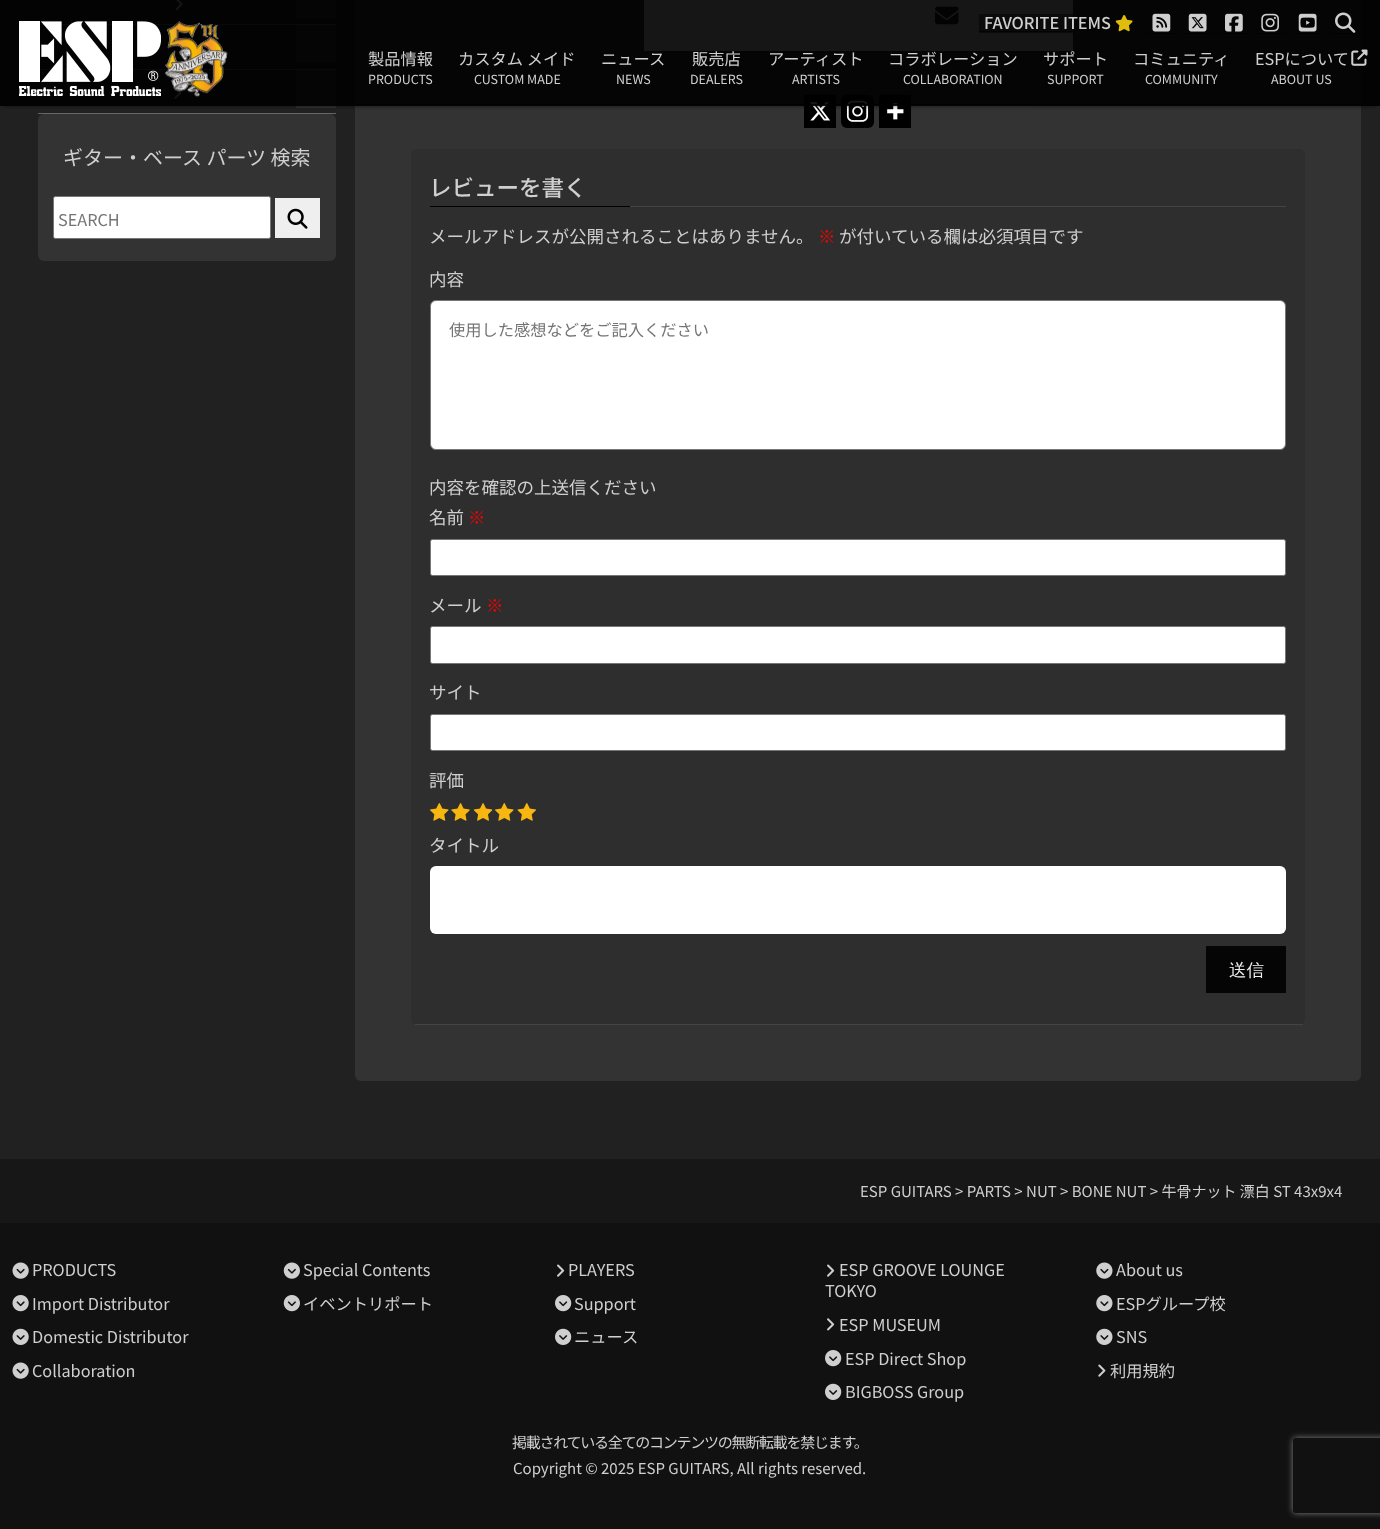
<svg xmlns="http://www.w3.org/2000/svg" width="1380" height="1529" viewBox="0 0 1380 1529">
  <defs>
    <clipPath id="clip1"><rect x="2" y="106" width="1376" height="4"/></clipPath>
    <filter id="blur1" x="-50%" y="-200%" width="200%" height="500%"><feGaussianBlur stdDeviation="2"/></filter>
    <clipPath id="clip2"><path d="M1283 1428H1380V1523H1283ZM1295.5 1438H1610.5C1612 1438 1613 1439 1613 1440.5V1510.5C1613 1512 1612 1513 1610.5 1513H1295.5C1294 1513 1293 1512 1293 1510.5V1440.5C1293 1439 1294 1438 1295.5 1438Z" clip-rule="evenodd"/></clipPath>
    <filter id="blur2" x="-50%" y="-200%" width="200%" height="500%"><feGaussianBlur stdDeviation="3"/></filter>
  </defs>
  <rect width="100%" height="100%" fill="#212121"/>
  <rect x="38" y="24" width="298" height="1" fill="#666666"/>
  <image x="175" y="0" width="8" height="10" href="img11.png"/>
  <rect x="296" y="0" width="40" height="19" fill="#333333"/>
  <rect x="38" y="69" width="298" height="1" fill="#666666"/>
  <rect x="296" y="25" width="40" height="38" fill="#333333"/>
  <image x="174" y="87" width="8" height="12" href="img12.png"/>
  <rect x="296" y="70" width="40" height="38" fill="#333333"/>
  <rect x="355" y="-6" width="1006" height="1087" rx="6" fill="#333333"/>
  <rect x="644" y="0" width="429" height="51" fill="#dbdbdb"/>
  <image x="935" y="6" width="24" height="19" href="img14.png"/>
  <rect x="804" y="95" width="32" height="33" fill="#000000"/>
  <image x="810" y="102" width="20" height="19" href="img15.png"/>
  <rect x="841" y="95" width="33" height="33" rx="6" fill="#000000"/>
  <image x="846" y="100" width="23" height="22" href="img16.png"/>
  <rect x="879" y="95" width="32" height="33" fill="#000000"/>
  <image x="887" y="103" width="17" height="17" href="img17.png"/>
  <g clip-path="url(#clip1)">
    <rect x="4" y="8" width="1372" height="98" fill="#000000" fill-opacity="0.6" filter="url(#blur1)"/>
  </g>
  <rect x="0" y="0" width="1380" height="106" fill="#000000" fill-opacity="0.9"/>
  <image x="19" y="21" width="142" height="75" href="img1.png"/>
  <image x="165" y="21" width="63" height="76" href="img2.png"/>
  <rect x="979" y="14" width="94" height="19" fill="#000000" fill-opacity="0.5"/>
  <rect x="979" y="31" width="94" height="1" fill="#000000" fill-opacity="0.7"/>
  <text x="984" y="29" font-family="Noto Sans JP" font-size="16.25" font-weight="500" fill="#cfcfcf">FAVORITE ITEMS</text>
  <image x="1115" y="15" width="18" height="17" href="img3.png"/>
  <rect x="1146" y="33" width="30" height="1" fill="#020202"/>
  <image x="1152" y="13" width="19" height="19" href="img4.png"/>
  <rect x="1183" y="33" width="30" height="1" fill="#020202"/>
  <image x="1188" y="13" width="19" height="19" href="img5.png"/>
  <rect x="1219" y="33" width="30" height="1" fill="#020202"/>
  <image x="1225" y="13" width="18" height="19" href="img6.png"/>
  <rect x="1255" y="33" width="31" height="1" fill="#020202"/>
  <image x="1261" y="13" width="18" height="19" href="img7.png"/>
  <rect x="1293" y="33" width="30" height="1" fill="#020202"/>
  <image x="1298" y="13" width="19" height="19" href="img8.png"/>
  <rect x="1329" y="33" width="32" height="1" fill="#020202"/>
  <image x="1335" y="12" width="21" height="21" href="img9.png"/>
  <rect x="356" y="104" width="90" height="1" fill="#020202"/>
  <text x="368" y="65" font-family="Noto Sans JP" font-size="16.25" fill="#cfcfcf">製品情報</text>
  <text x="368" y="84" font-family="Noto Sans JP" font-size="12.5" fill="#cfcfcf">PRODUCTS</text>
  <text x="458" y="65" font-family="Noto Sans JP" font-size="16.25" fill="#cfcfcf">カスタム メイド</text>
  <text x="474" y="84" font-family="Noto Sans JP" font-size="12.5" fill="#cfcfcf">CUSTOM MADE</text>
  <rect x="446" y="104" width="309" height="1" fill="#020202"/>
  <text x="601" y="65" font-family="Noto Sans JP" font-size="16.25" fill="#cfcfcf">ニュース</text>
  <text x="616" y="84" font-family="Noto Sans JP" font-size="12.5" fill="#cfcfcf">NEWS</text>
  <text x="692" y="65" font-family="Noto Sans JP" font-size="16.25" fill="#cfcfcf">販売店</text>
  <text x="690" y="84" font-family="Noto Sans JP" font-size="12.5" fill="#cfcfcf">DEALERS</text>
  <rect x="755" y="104" width="121" height="1" fill="#000000" fill-opacity="0.7"/>
  <text x="768" y="65" font-family="Noto Sans JP" font-size="16.25" fill="#cfcfcf">アーティスト</text>
  <text x="792" y="84" font-family="Noto Sans JP" font-size="12.5" fill="#cfcfcf">ARTISTS</text>
  <rect x="876" y="104" width="155" height="1" fill="#000000" fill-opacity="0.7"/>
  <text x="888" y="65" font-family="Noto Sans JP" font-size="16.25" fill="#cfcfcf">コラボレーション</text>
  <text x="903" y="84" font-family="Noto Sans JP" font-size="12.5" fill="#cfcfcf">COLLABORATION</text>
  <rect x="1031" y="104" width="330" height="1" fill="#020202"/>
  <text x="1043" y="65" font-family="Noto Sans JP" font-size="16.25" fill="#cfcfcf">サポート</text>
  <text x="1047" y="84" font-family="Noto Sans JP" font-size="12.5" fill="#cfcfcf">SUPPORT</text>
  <text x="1133" y="65" font-family="Noto Sans JP" font-size="16.25" fill="#cfcfcf">コミュニティ</text>
  <text x="1145" y="84" font-family="Noto Sans JP" font-size="12.5" fill="#cfcfcf">COMMUNITY</text>
  <text x="1255" y="65" font-family="Noto Sans JP" font-size="16.25" fill="#cfcfcf">ESPについて</text>
  <image x="1351" y="49" width="17" height="17" href="img10.png"/>
  <text x="1271" y="84" font-family="Noto Sans JP" font-size="12.5" fill="#cfcfcf">ABOUT US</text>
  <rect x="38" y="113" width="298" height="1" fill="#666666"/>
  <rect x="38" y="114" width="298" height="147" rx="6" fill="#333333"/>
  <text x="63" y="165" font-family="Noto Sans JP" font-size="20" fill="#cfcfcf">ギター・ベース パーツ 検索</text>
  <rect x="53.5" y="196.5" width="217" height="42" rx="2" fill="#ffffff" stroke="#767676"/>
  <text x="58" y="226" font-family="Noto Sans JP" font-size="16.25" fill="#757575">SEARCH</text>
  <rect x="275" y="198" width="45" height="40" fill="#efefef"/>
  <image x="287" y="208" width="21" height="21" href="img13.png"/>
  <rect x="411" y="149" width="894" height="876" rx="6" fill="#2e2e2e"/>
  <rect x="415" y="1024" width="888" height="1" fill="#444444"/>
  <rect x="630" y="206" width="656" height="1" fill="#444444"/>
  <text x="429" y="196" font-family="Noto Sans JP" font-size="22.5" font-weight="500" fill="#cfcfcf">レビューを書く</text>
  <rect x="430" y="206" width="200" height="1" fill="#000000"/>
  <text x="429" y="243" font-family="Noto Sans JP" font-size="17.5" fill="#cfcfcf">メールアドレスが公開されることはありません。</text>
  <text x="818" y="243" font-family="Noto Sans JP" font-size="17.5" fill="#ff0000">※</text>
  <text x="839" y="243" font-family="Noto Sans JP" font-size="17.5" fill="#cfcfcf">が付いている欄は必須項目です</text>
  <text x="429" y="286" font-family="Noto Sans JP" font-size="17.5" fill="#cfcfcf">内容</text>
  <rect x="430.5" y="300.5" width="855" height="149" rx="5.5" fill="#ffffff" stroke="#767676"/>
  <text x="449" y="336" font-family="Noto Sans JP" font-size="16.25" fill="#757575">使用した感想などをご記入ください</text>
  <text x="429" y="494" font-family="Noto Sans JP" font-size="17.5" fill="#cfcfcf">内容を確認の上送信ください</text>
  <text x="429" y="524" font-family="Noto Sans JP" font-size="17.5" fill="#cfcfcf">名前</text>
  <text x="468" y="524" font-family="Noto Sans JP" font-size="17.5" fill="#ff0000">※</text>
  <rect x="430.5" y="539.5" width="855" height="36" rx="2" fill="#ffffff" stroke="#767676"/>
  <text x="429" y="612" font-family="Noto Sans JP" font-size="17.5" fill="#cfcfcf">メール</text>
  <text x="486" y="612" font-family="Noto Sans JP" font-size="17.5" fill="#ff0000">※</text>
  <rect x="430.5" y="626.5" width="855" height="37" rx="2" fill="#ffffff" stroke="#767676"/>
  <text x="429" y="699" font-family="Noto Sans JP" font-size="17.5" fill="#cfcfcf">サイト</text>
  <rect x="430.5" y="714.5" width="855" height="36" rx="2" fill="#ffffff" stroke="#767676"/>
  <text x="429" y="787" font-family="Noto Sans JP" font-size="17.5" fill="#cfcfcf">評価</text>
  <image x="430" y="803" width="19" height="18" href="img18.png"/>
  <image x="451" y="803" width="19" height="18" href="img19.png"/>
  <image x="473" y="803" width="20" height="18" href="img20.png"/>
  <image x="495" y="803" width="19" height="18" href="img18.png"/>
  <image x="517" y="803" width="19" height="18" href="img21.png"/>
  <text x="429" y="852" font-family="Noto Sans JP" font-size="17.5" fill="#cfcfcf">タイトル</text>
  <rect x="430" y="866" width="856" height="68" rx="6" fill="#ffffff"/>
  <rect x="1206" y="946" width="80" height="47" fill="#050505"/>
  <text x="1229" y="976" font-family="WenQuanYi Zen Hei" font-size="17.5" font-weight="500" fill="#efefef">送信</text>
  <rect x="0" y="1159" width="1380" height="64" fill="#171717"/>
  <text x="860" y="1197" font-family="Noto Sans JP" font-size="15" fill="#cfcfcf">ESP GUITARS &gt; PARTS &gt; NUT &gt; BONE NUT &gt; 牛骨ナット 漂白 ST 43x9x4</text>
  <rect x="0" y="1223" width="1380" height="306" fill="#111111"/>
  <image x="12" y="1262" width="17" height="17" href="img22.png"/>
  <text x="32" y="1276" font-family="Noto Sans JP" font-size="16.25" fill="#cfcfcf">PRODUCTS</text>
  <image x="12" y="1295" width="17" height="17" href="img23.png"/>
  <text x="32" y="1310" font-family="Noto Sans JP" font-size="16.25" fill="#cfcfcf">Import Distributor</text>
  <image x="12" y="1328" width="17" height="17" href="img24.png"/>
  <text x="32" y="1343" font-family="Noto Sans JP" font-size="16.25" fill="#cfcfcf">Domestic Distributor</text>
  <image x="12" y="1362" width="17" height="17" href="img22.png"/>
  <text x="32" y="1377" font-family="Noto Sans JP" font-size="16.25" fill="#cfcfcf">Collaboration</text>
  <image x="283" y="1262" width="17" height="17" href="img25.png"/>
  <text x="303" y="1276" font-family="Noto Sans JP" font-size="16.25" fill="#cfcfcf">Special Contents</text>
  <image x="283" y="1295" width="17" height="17" href="img26.png"/>
  <text x="303" y="1310" font-family="Noto Sans JP" font-size="16.25" fill="#cfcfcf">イベントリポート</text>
  <image x="557" y="1264" width="8" height="13" href="img27.png"/>
  <text x="568" y="1276" font-family="Noto Sans JP" font-size="16.25" fill="#cfcfcf">PLAYERS</text>
  <image x="555" y="1295" width="17" height="17" href="img28.png"/>
  <text x="574" y="1310" font-family="Noto Sans JP" font-size="16.25" fill="#cfcfcf">Support</text>
  <image x="555" y="1328" width="17" height="17" href="img29.png"/>
  <text x="574" y="1343" font-family="Noto Sans JP" font-size="16.25" fill="#cfcfcf">ニュース</text>
  <image x="827" y="1264" width="8" height="13" href="img27.png"/>
  <text x="839" y="1276" font-family="Noto Sans JP" font-size="16.25" fill="#cfcfcf">ESP GROOVE LOUNGE</text>
  <text x="825" y="1297" font-family="Noto Sans JP" font-size="16.25" fill="#cfcfcf">TOKYO</text>
  <image x="827" y="1318" width="8" height="13" href="img30.png"/>
  <text x="839" y="1331" font-family="Noto Sans JP" font-size="16.25" fill="#cfcfcf">ESP MUSEUM</text>
  <image x="825" y="1350" width="17" height="17" href="img28.png"/>
  <text x="845" y="1365" font-family="Noto Sans JP" font-size="16.25" fill="#cfcfcf">ESP Direct Shop</text>
  <image x="825" y="1383" width="17" height="17" href="img29.png"/>
  <text x="845" y="1398" font-family="Noto Sans JP" font-size="16.25" fill="#cfcfcf">BIGBOSS Group</text>
  <image x="1096" y="1262" width="17" height="17" href="img31.png"/>
  <text x="1116" y="1276" font-family="Noto Sans JP" font-size="16.25" fill="#cfcfcf">About us</text>
  <image x="1096" y="1295" width="17" height="17" href="img32.png"/>
  <text x="1116" y="1310" font-family="Noto Sans JP" font-size="16.25" fill="#cfcfcf">ESPグループ校</text>
  <image x="1096" y="1328" width="17" height="17" href="img33.png"/>
  <text x="1116" y="1343" font-family="Noto Sans JP" font-size="16.25" fill="#cfcfcf">SNS</text>
  <image x="1098" y="1364" width="8" height="13" href="img34.png"/>
  <text x="1110" y="1377" font-family="Noto Sans JP" font-size="16.25" fill="#cfcfcf">利用規約</text>
  <text x="512" y="1448" font-family="Noto Sans JP" font-size="15" letter-spacing="-1.25" fill="#cfcfcf">掲載されている全てのコンテンツの無断転載を禁じます。</text>
  <text x="513" y="1474" font-family="Noto Sans JP" font-size="15" fill="#cfcfcf">Copyright © 2025 ESP GUITARS, All rights reserved.</text>
  <g clip-path="url(#clip2)">
    <rect x="1293" y="1438" width="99" height="75" rx="2.5" fill="#808080" filter="url(#blur2)"/>
  </g>
</svg>
